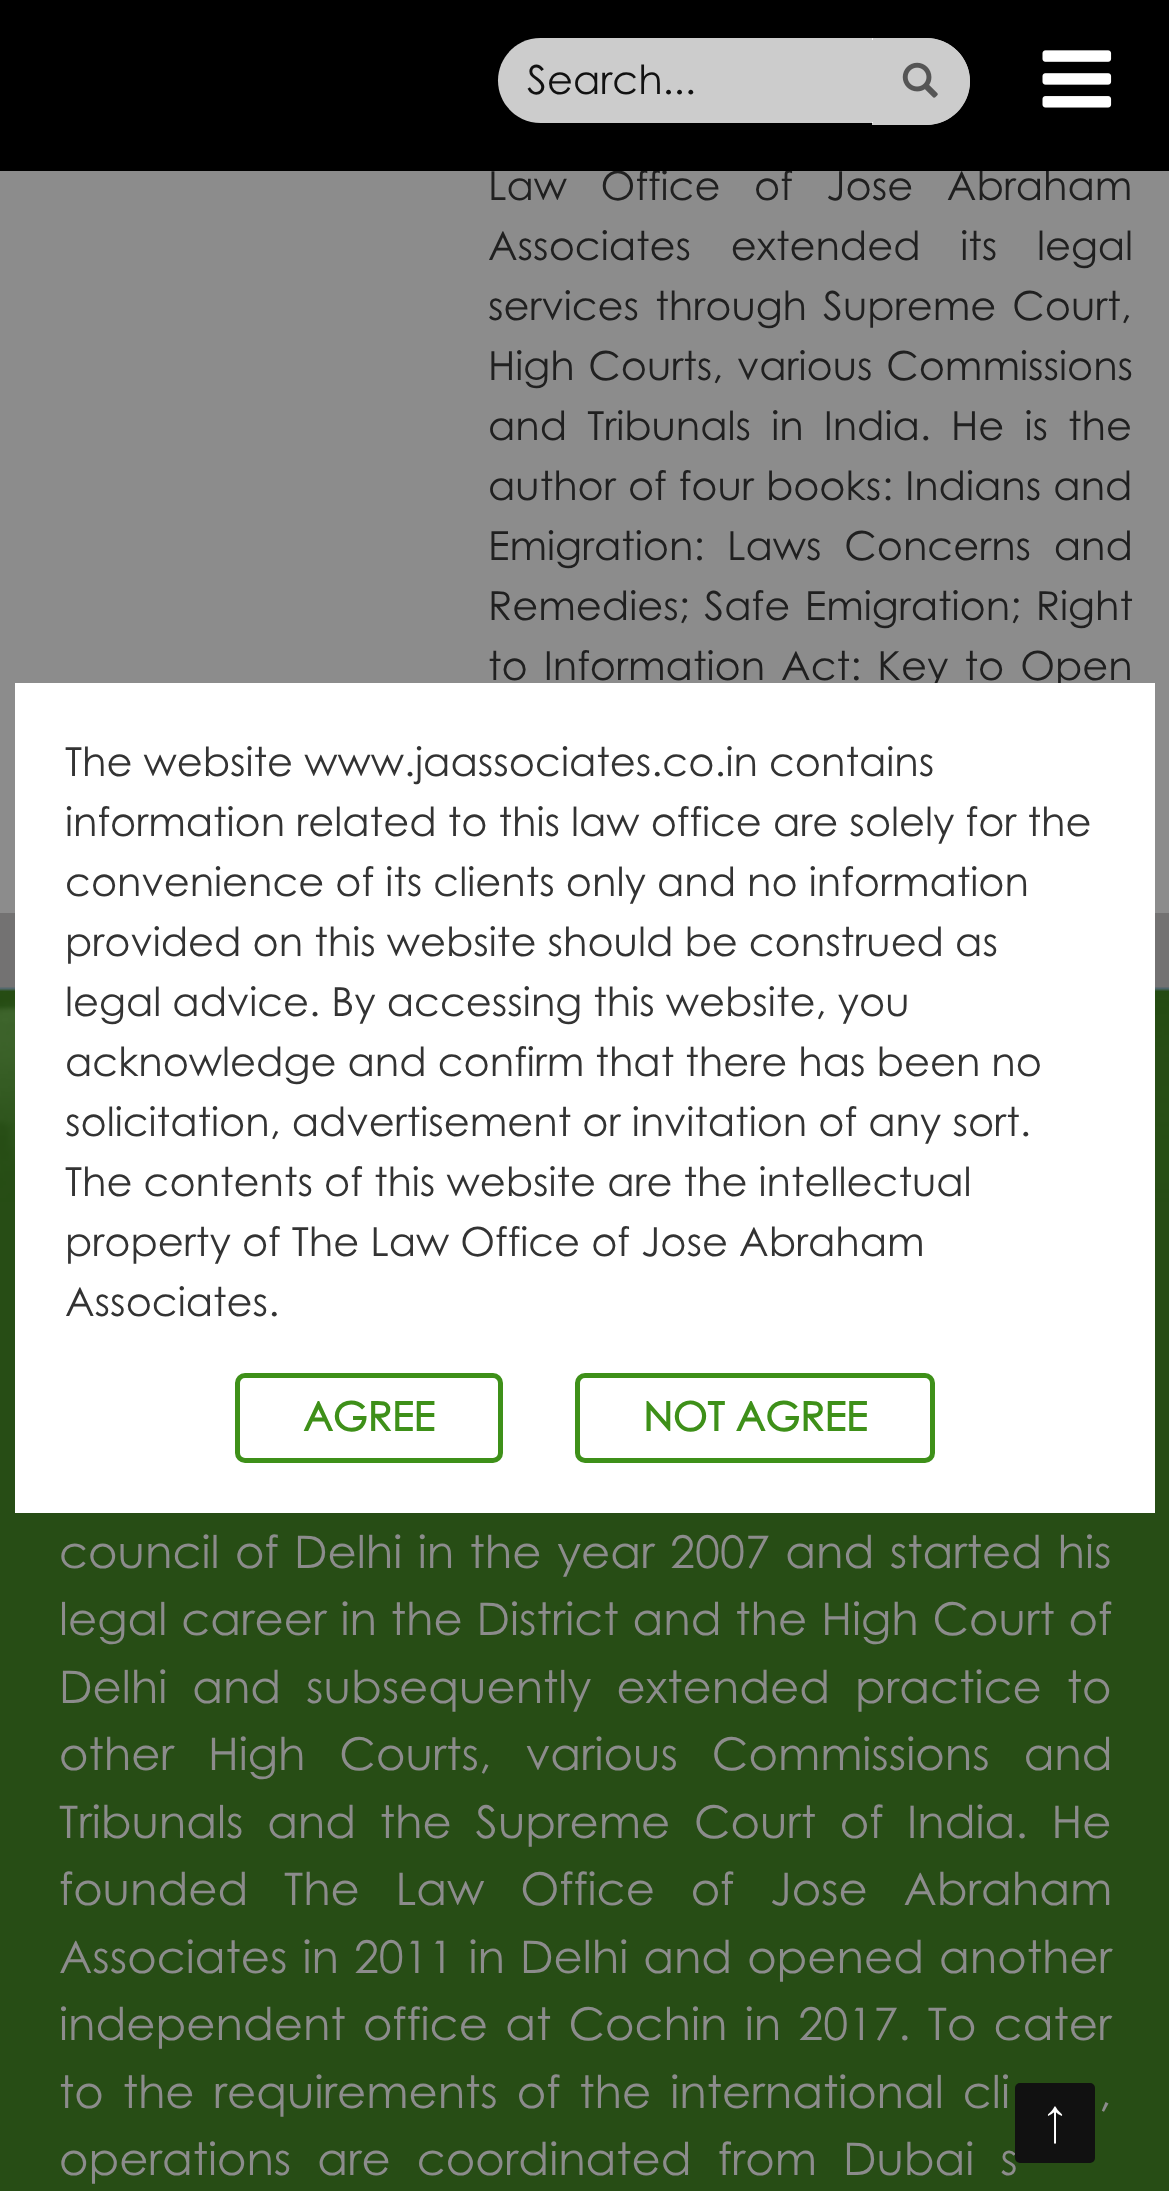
<svg xmlns="http://www.w3.org/2000/svg" width="1169" height="2191" viewBox="0 0 1169 2191">
  <rect width="100%" height="100%" fill="#737272"/>
  <rect x="0" y="171" width="1169" height="742" fill="#8c8c8c"/>
  <text x="488" y="200" word-spacing="22.5" font-family="Century Gothic" font-size="40" fill="#202020">Law Office of Jose Abraham</text>
  <rect x="0" y="0" width="1169" height="171" fill="#000000"/>
  <path d="M873 38H926.5C950.5 38 970 57.5 970 81.5C970 105.5 950.5 125 926.5 125H873Z" fill="#cccccc"/>
  <path d="M872 38H926C950 38 970 57 970 81C970 105 950 125 926 125H872ZM872 40H926C949 40 968 58 968 81C968 104 949 122 926 122H872Z" fill="#cccccc" fill-rule="evenodd"/>
  <path d="M540.5 38H873V123H540.5C517 123 498 104 498 80.5C498 57 517 38 540.5 38Z" fill="#ffffff" fill-opacity="0.8"/>
  <text x="527" y="94" font-family="Century Gothic" font-size="40" fill="#111111">Search...</text>
  <image x="902" y="62" width="36" height="36" href="img1.png"/>
  <image x="1042" y="50" width="70" height="58" href="img2.png"/>
  <text x="488" y="260" word-spacing="28.5" font-family="Century Gothic" font-size="40" fill="#202020">Associates extended its legal</text>
  <text x="488" y="320" word-spacing="5" font-family="Century Gothic" font-size="40" fill="#202020">services through Supreme Court,</text>
  <text x="488" y="380" word-spacing="2.5" font-family="Century Gothic" font-size="40" fill="#202020">High Courts, various Commissions</text>
  <text x="488" y="440" word-spacing="9" font-family="Century Gothic" font-size="40" fill="#202020">and Tribunals in India. He is the</text>
  <text x="488" y="500" word-spacing="1" font-family="Century Gothic" font-size="40" fill="#202020">author of four books</text>
  <text x="882" y="500" word-spacing="1" font-family="Century Gothic" font-size="40" fill="#202020">: Indians and</text>
  <text x="488" y="560" word-spacing="11.5" font-family="Century Gothic" font-size="40" fill="#202020">Emigration: Laws Concerns and</text>
  <text x="488" y="620" word-spacing="3.5" font-family="Century Gothic" font-size="40" fill="#202020">Remedies; Safe Emigration; Right</text>
  <text x="488" y="680" word-spacing="5" font-family="Century Gothic" font-size="40" fill="#202020">to Information Act: Key to Open</text>
  <image x="0" y="987" width="1169" height="1204" href="img3.png"/>
  <rect x="15" y="683" width="1140" height="830" fill="#ffffff"/>
  <text x="65" y="776" font-family="Century Gothic" font-size="40" fill="#333333">The website www.jaassociates.co.in contains</text>
  <text x="65" y="836" font-family="Century Gothic" font-size="40" fill="#333333">information related to this law office are solely for the</text>
  <text x="65" y="896" font-family="Century Gothic" font-size="40" fill="#333333">convenience of its clients only and no information</text>
  <text x="65" y="956" font-family="Century Gothic" font-size="40" fill="#333333">provided on this website should be construed as</text>
  <text x="65" y="1016" font-family="Century Gothic" font-size="40" fill="#333333">legal advice. By accessing this website, you</text>
  <text x="65" y="1076" font-family="Century Gothic" font-size="40" fill="#333333">acknowledge and confirm that there has been no</text>
  <text x="65" y="1136" font-family="Century Gothic" font-size="40" fill="#333333">solicitation, advertisement or invitation of any sort.</text>
  <text x="65" y="1196" font-family="Century Gothic" font-size="40" fill="#333333">The contents of this website are the intellectual</text>
  <text x="65" y="1256" font-family="Century Gothic" font-size="40" fill="#333333">property of The Law Office of Jose Abraham</text>
  <text x="65" y="1316" font-family="Century Gothic" font-size="40" fill="#333333">Associates.</text>
  <rect x="237.5" y="1375.5" width="263" height="85" rx="7.5" fill="none" stroke="#3e9019" stroke-width="5"/>
  <text x="303" y="1431" font-family="Century Gothic" font-size="40" font-weight="bold" fill="#3e9019">AGREE</text>
  <rect x="577.5" y="1375.5" width="355" height="85" rx="7.5" fill="none" stroke="#3e9019" stroke-width="5"/>
  <text x="643" y="1431" font-family="Century Gothic" font-size="40" font-weight="bold" fill="#3e9019">NOT AGREE</text>
  <text x="59" y="1568" word-spacing="3" font-family="Century Gothic" font-size="45" fill="#8c8c8c">council of Delhi in the year 2007 and started his</text>
  <text x="59" y="1635" word-spacing="1.4" font-family="Century Gothic" font-size="45" fill="#8c8c8c">legal career in the District and the High Court of</text>
  <text x="59" y="1703" word-spacing="12.5" font-family="Century Gothic" font-size="45" fill="#8c8c8c">Delhi and subsequently extended practice to</text>
  <text x="59" y="1770" word-spacing="21.5" font-family="Century Gothic" font-size="45" fill="#8c8c8c">other High Courts, various Commissions and</text>
  <text x="59" y="1838" word-spacing="11.25" font-family="Century Gothic" font-size="45" fill="#8c8c8c">Tribunals and the Supreme Court of India. He</text>
  <text x="59" y="1905" word-spacing="23.25" font-family="Century Gothic" font-size="45" fill="#8c8c8c">founded The Law Office of Jose Abraham</text>
  <text x="59" y="1973" word-spacing="2.5" font-family="Century Gothic" font-size="45" fill="#8c8c8c">Associates in 2011 in Delhi and opened another</text>
  <text x="59" y="2040" word-spacing="4.75" font-family="Century Gothic" font-size="45" fill="#8c8c8c">independent office at Cochin in 2017. To cater</text>
  <text x="59" y="2108" word-spacing="6.5" font-family="Century Gothic" font-size="45" fill="#8c8c8c">to the requirements of the international cli</text>
  <text x="1099" y="2108" word-spacing="6.5" font-family="Century Gothic" font-size="45" fill="#8c8c8c">,</text>
  <text x="59" y="2175" word-spacing="13.5" font-family="Century Gothic" font-size="45" fill="#8c8c8c">operations are coordinated from Dubai s</text>
  <rect x="1015" y="2083" width="80" height="80" rx="5" fill="#111111"/>
  <text x="1045" y="2135" font-family="Century Gothic" font-size="40" fill="#ffffff">↑</text>
</svg>
